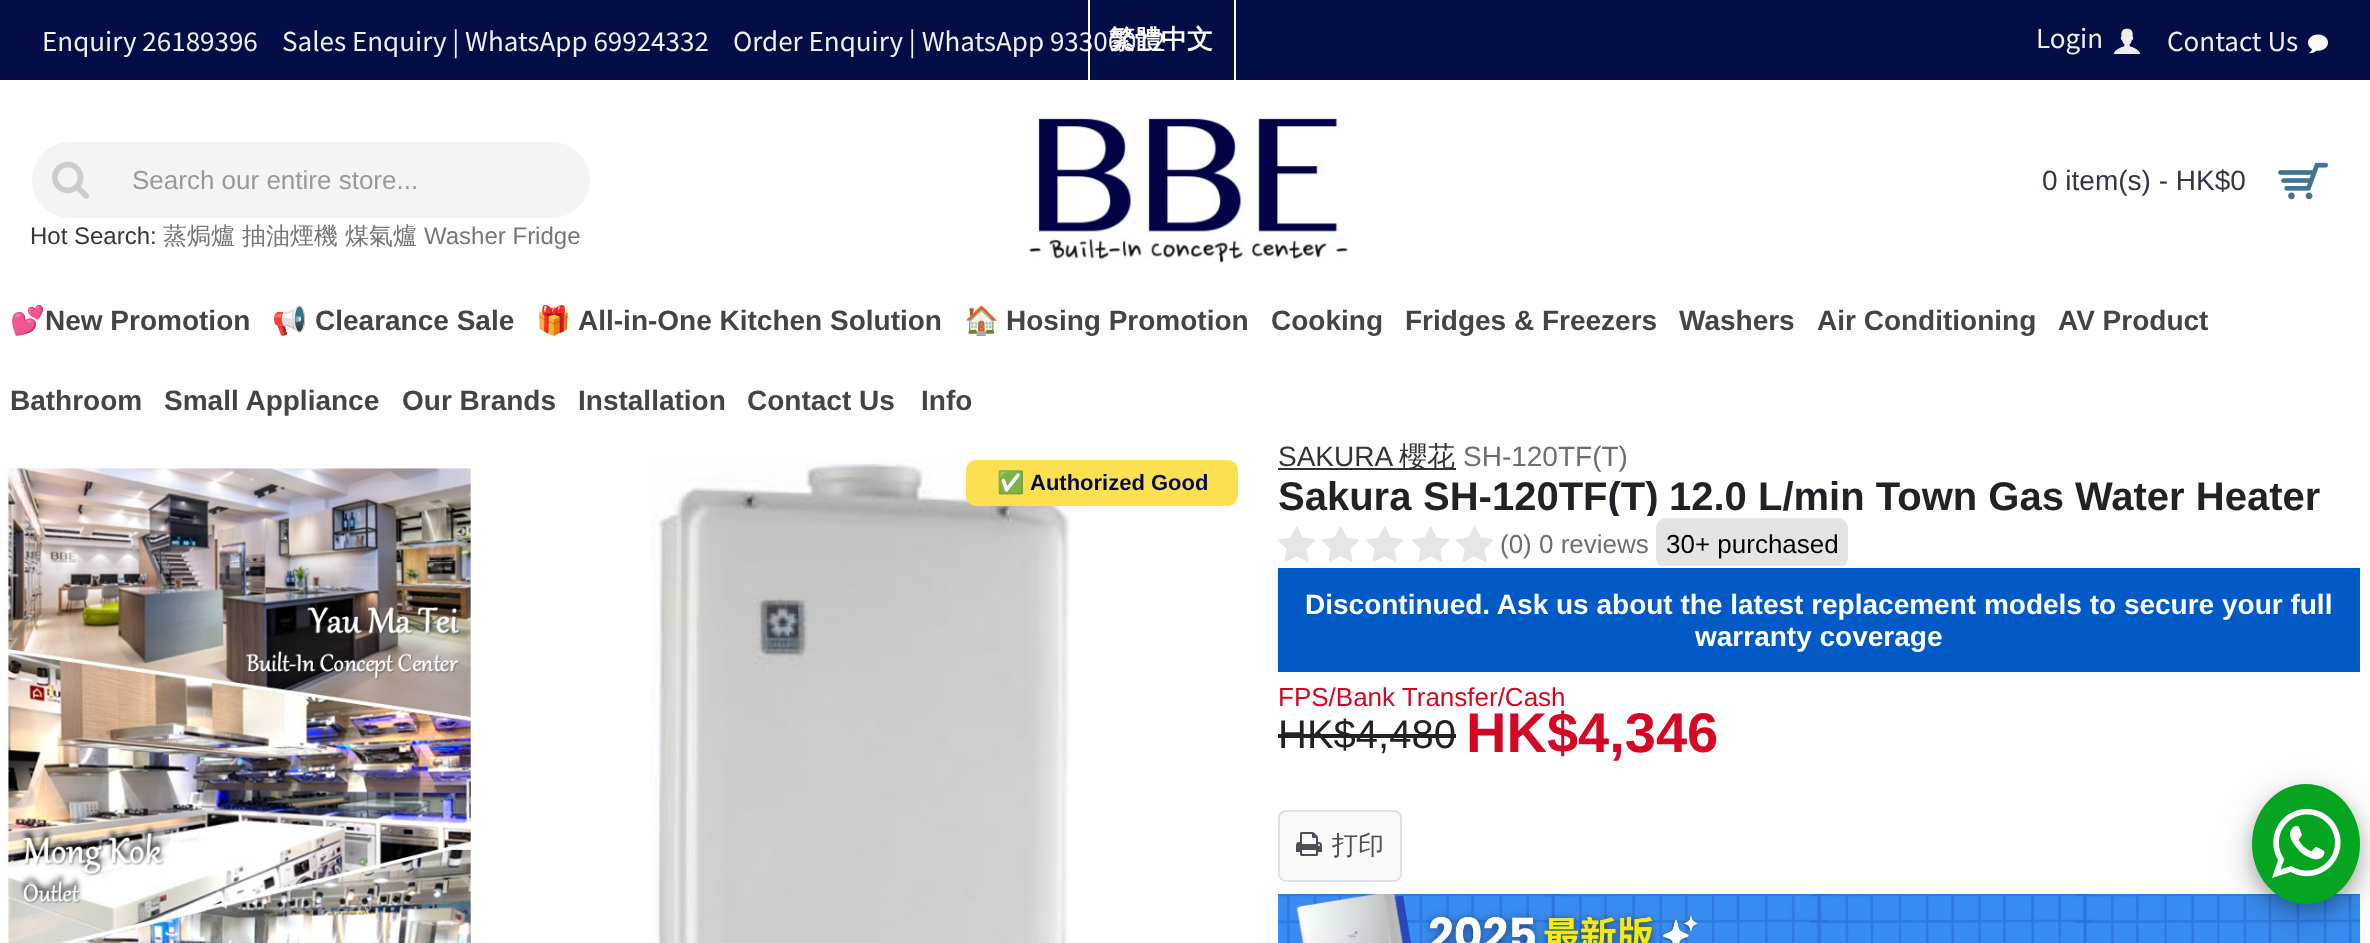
<svg xmlns="http://www.w3.org/2000/svg" width="2370" height="943" viewBox="0 0 2370 943">
  <defs>
    <clipPath id="clip1"><rect x="1278" y="476" width="1082" height="40"/></clipPath>
    <clipPath id="clip2"><rect x="1278" y="516" width="1082" height="50"/></clipPath>
    <filter id="blur1" x="-50%" y="-200%" width="200%" height="500%"><feGaussianBlur stdDeviation="20"/></filter>
    <filter id="blur2" x="-50%" y="-200%" width="200%" height="500%"><feGaussianBlur stdDeviation="8"/></filter>
  </defs>
  <rect width="100%" height="100%" fill="#ffffff"/>
  <rect x="0" y="0" width="2370" height="80" fill="#040e46"/>
  <rect x="1234" y="0" width="2" height="80" fill="#ffffff"/>
  <text x="733" y="51" font-family="Noto Sans TC" font-size="26" fill="#eeeeee">Order Enquiry | WhatsApp 93306012</text>
  <rect x="1088" y="0" width="2" height="80" fill="#ffffff"/>
  <text x="1109" y="48" font-family="WenQuanYi Zen Hei" font-size="26" font-weight="bold" fill="#ffffff">繁體中文</text>
  <text x="2036" y="48" font-family="Noto Sans TC" font-size="26" fill="#eeeeee">Login</text>
  <image x="2113" y="28" width="28" height="26" href="img1.png"/>
  <text x="2167" y="51" font-family="Noto Sans TC" font-size="26" fill="#eeeeee">Contact Us</text>
  <image x="2308" y="34" width="20" height="20" href="img2.png"/>
  <text x="42" y="51" font-family="Noto Sans TC" font-size="26" fill="#eeeeee">Enquiry 26189396</text>
  <text x="282" y="51" font-family="Noto Sans TC" font-size="26" fill="#eeeeee">Sales Enquiry | WhatsApp 69924332</text>
  <rect x="31" y="141" width="560" height="78" rx="39" fill="#f4f4f4" stroke="#ffffff" stroke-width="2"/>
  <image x="52" y="161" width="37" height="38" href="img3.png"/>
  <text x="132" y="189" font-family="Liberation Sans" font-size="26" fill="#999999">Search our entire store...</text>
  <text x="30" y="244" font-family="Liberation Sans" font-size="24" fill="#333745">Hot Search:</text>
  <text x="163" y="244" font-family="WenQuanYi Zen Hei" font-size="24" font-weight="500" fill="#777777">蒸焗爐</text>
  <text x="242" y="244" font-family="WenQuanYi Zen Hei" font-size="24" font-weight="500" fill="#777777">抽油煙機</text>
  <text x="345" y="244" font-family="WenQuanYi Zen Hei" font-size="24" font-weight="500" fill="#777777">煤氣爐</text>
  <text x="424" y="244" font-family="Liberation Sans" font-size="24" fill="#777777">Washer Fridge</text>
  <image x="1029" y="117" width="320" height="146" href="img4.png"/>
  <text x="2042" y="190" font-family="Liberation Sans" font-size="28" fill="#333745">0 item(s) - HK$0</text>
  <image x="2278" y="162" width="50" height="38" href="img5.png"/>
  <text x="10" y="330" font-family="Noto Color Emoji" font-size="28" font-weight="bold" fill="#444349">💕</text>
  <text x="45" y="330" font-family="Liberation Sans" font-size="28" font-weight="bold" fill="#444349">New Promotion</text>
  <text x="272" y="330" font-family="Noto Color Emoji" font-size="28" font-weight="bold" fill="#444349">📢</text>
  <text x="315" y="330" font-family="Liberation Sans" font-size="28" font-weight="bold" fill="#444349">Clearance Sale</text>
  <text x="536" y="330" font-family="Noto Color Emoji" font-size="28" font-weight="bold" fill="#444349">🎁</text>
  <text x="578" y="330" font-family="Liberation Sans" font-size="28" font-weight="bold" fill="#444349">All-in-One Kitchen Solution</text>
  <text x="964" y="330" font-family="Noto Color Emoji" font-size="28" font-weight="bold" fill="#444349">🏠</text>
  <text x="1006" y="330" font-family="Liberation Sans" font-size="28" font-weight="bold" fill="#444349">Hosing Promotion</text>
  <text x="1271" y="330" font-family="Liberation Sans" font-size="28" font-weight="bold" fill="#444349">Cooking</text>
  <text x="1405" y="330" font-family="Liberation Sans" font-size="28" font-weight="bold" fill="#444349">Fridges &amp; Freezers</text>
  <text x="1679" y="330" font-family="Liberation Sans" font-size="28" font-weight="bold" fill="#444349">Washers</text>
  <text x="1817" y="330" font-family="Liberation Sans" font-size="28" font-weight="bold" fill="#444349">Air Conditioning</text>
  <text x="2058" y="330" font-family="Liberation Sans" font-size="28" font-weight="bold" fill="#444349">AV Product</text>
  <text x="10" y="410" font-family="Liberation Sans" font-size="28" font-weight="bold" fill="#444349">Bathroom</text>
  <text x="164" y="410" font-family="Liberation Sans" font-size="28" font-weight="bold" fill="#444349">Small Appliance</text>
  <text x="402" y="410" font-family="Liberation Sans" font-size="28" font-weight="bold" fill="#444349">Our Brands</text>
  <text x="578" y="410" font-family="Liberation Sans" font-size="28" font-weight="bold" fill="#444349">Installation</text>
  <text x="747" y="410" font-family="Liberation Sans" font-size="28" font-weight="bold" fill="#444349">Contact Us</text>
  <text x="921" y="410" font-family="Liberation Sans" font-size="28" font-weight="bold" fill="#444349">Info</text>
  <image x="2" y="463" width="470" height="480" href="img6.png"/>
  <image x="650" y="458" width="420" height="485" href="img7.png"/>
  <rect x="966" y="460" width="272" height="46" rx="10" fill="#fce052"/>
  <text x="997" y="490" font-family="Noto Color Emoji" font-size="22" font-weight="bold" fill="#040e46">✅</text>
  <text x="1030" y="490" font-family="Liberation Sans" font-size="22" font-weight="bold" fill="#040e46">Authorized Good</text>
  <text x="1278" y="466" font-family="Liberation Sans" font-size="28" fill="#333333">SAKURA</text>
  <rect x="1278" y="468" width="178" height="2" fill="#333333"/>
  <text x="1399" y="466" font-family="WenQuanYi Zen Hei" font-size="28" font-weight="500" fill="#333333">櫻花</text>
  <text x="1463" y="466" font-family="Liberation Sans" font-size="28" fill="#6c6e74">SH-120TF(T)</text>
  <text x="1278" y="510" font-family="Liberation Sans" font-size="40" font-weight="bold" fill="#1f2227">Sakura</text>
  <g clip-path="url(#clip1)">
    <text x="1423" y="510" font-family="Liberation Sans" font-size="40" font-weight="bold" fill="#1f2227">SH-120TF(T)</text>
  </g>
  <text x="1669" y="510" font-family="Liberation Sans" font-size="40" font-weight="bold" fill="#1f2227">12.0 L/min Town Gas Water Heater</text>
  <image x="1278" y="526" width="37" height="36" href="img8.png"/>
  <image x="1322" y="526" width="37" height="36" href="img8.png"/>
  <image x="1366" y="526" width="37" height="36" href="img8.png"/>
  <image x="1412" y="526" width="37" height="36" href="img8.png"/>
  <image x="1456" y="526" width="37" height="36" href="img8.png"/>
  <text x="1500" y="553" font-family="Liberation Sans" font-size="26" fill="#6c6e74">(0) 0 reviews</text>
  <g clip-path="url(#clip2)">
    <rect x="1656" y="518" width="192" height="50" rx="10" fill="#e4e4e4"/>
  </g>
  <text x="1666" y="553" font-family="Liberation Sans" font-size="26" fill="#000000">30+ purchased</text>
  <rect x="1278" y="568" width="1082" height="104" fill="#015ac6"/>
  <text x="1305" y="614" font-family="Liberation Sans" font-size="28" font-weight="bold" fill="#ffffff">Discontinued. Ask us about the latest replacement models to secure your full</text>
  <text x="1695" y="646" font-family="Liberation Sans" font-size="28" font-weight="bold" fill="#ffffff">warranty coverage</text>
  <text x="1278" y="706" font-family="Liberation Sans" font-size="26" fill="#d50724">FPS/Bank Transfer/Cash</text>
  <text x="1278" y="748" font-family="Liberation Sans" font-size="40" fill="#1f2227">HK$4,480</text>
  <rect x="1278" y="734" width="178" height="4" fill="#202226"/>
  <text x="1466" y="752" font-family="Liberation Sans" font-size="56" font-weight="bold" fill="#d50724">HK$4,346</text>
  <rect x="1279" y="811" width="122" height="70" rx="7" fill="#f8f9fa" stroke="#dee2e6" stroke-width="2"/>
  <image x="1296" y="832" width="26" height="24" href="img9.png"/>
  <text x="1332" y="854" font-family="WenQuanYi Zen Hei" font-size="26" font-weight="500" fill="#495057">打印</text>
  <image x="1278" y="894" width="1082" height="49" href="img10.png"/>
  <rect x="2252" y="796" width="108" height="120" rx="54" fill="#000000" fill-opacity="0.19" filter="url(#blur1)"/>
  <rect x="2252" y="792" width="108" height="120" rx="54" fill="#000000" fill-opacity="0.2" filter="url(#blur2)"/>
  <ellipse cx="2306" cy="844" rx="54" ry="60" fill="#05a522"/>
  <image x="2272" y="808" width="69" height="70" href="img11.png"/>
</svg>
